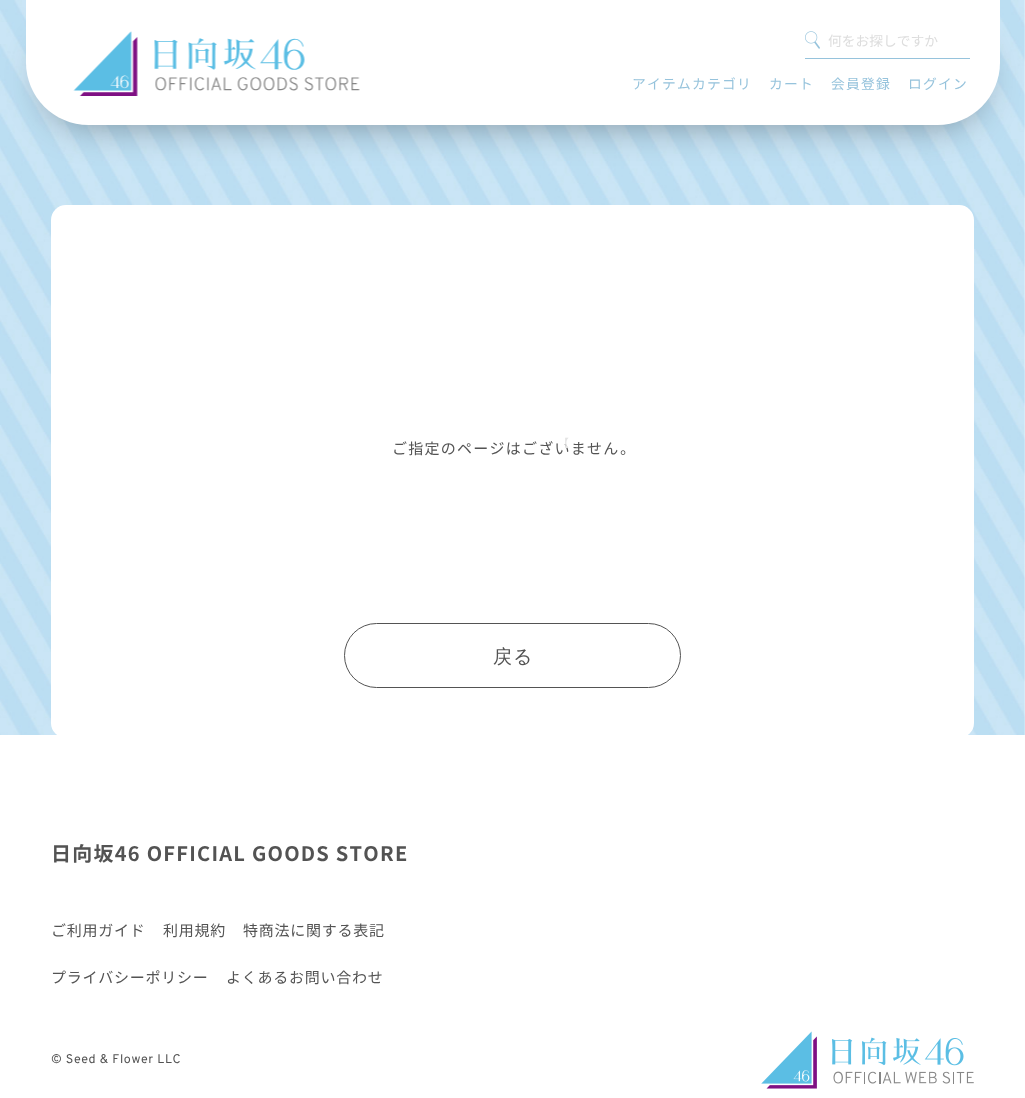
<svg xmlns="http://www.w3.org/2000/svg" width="1025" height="1098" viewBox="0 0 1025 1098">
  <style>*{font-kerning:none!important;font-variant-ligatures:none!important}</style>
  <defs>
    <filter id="blur1" x="-50%" y="-200%" width="200%" height="500%"><feGaussianBlur stdDeviation="19"/></filter>
  </defs>
  <rect width="100%" height="100%" fill="#ffffff"/>
  <image x="0" y="0" width="1025" height="735" href="img1.png"/>
  <rect x="45" y="35" width="936" height="88" rx="44" fill="#000000" fill-opacity="0.4" filter="url(#blur1)"/>
  <path d="M26 0H1000V62.5C1000 97 972 125 937.5 125H88.5C54 125 26 97 26 62.5Z" fill="#ffffff"/>
  <image x="73" y="31" width="287" height="65" href="img2.png"/>
  <rect x="805" y="58" width="165" height="1" fill="#96c3dc"/>
  <image x="805" y="31" width="15" height="18" href="img3.png"/>
  <text x="828" y="46" font-family="Noto Sans JP" font-size="13.75" fill="#dddddd">何をお探しですか</text>
  <text x="632" y="89" font-family="Noto Sans JP" font-size="13.75" letter-spacing="1.25" fill="#96c3dc">アイテムカテゴリ</text>
  <rect x="51" y="205" width="923" height="533" rx="15" fill="#ffffff"/>
  <text x="392" y="454" font-family="Noto Sans JP" font-size="15" letter-spacing="1.25" fill="#535353">ご指定のページはございません</text>
  <text x="563" y="447" font-family="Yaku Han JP" font-size="11" letter-spacing="1.25" fill="#e3e3e3">【</text>
  <text x="769" y="89" font-family="Noto Sans JP" font-size="13.75" letter-spacing="1.25" fill="#96c3dc">カート</text>
  <text x="831" y="89" font-family="Noto Sans JP" font-size="13.75" letter-spacing="1.25" fill="#96c3dc">会員登録</text>
  <text x="908" y="89" font-family="Noto Sans JP" font-size="13.75" letter-spacing="1.25" fill="#96c3dc">ログイン</text>
  <text x="620" y="454" font-family="Yaku Han JP" font-size="15" letter-spacing="1.25" fill="#535353">。</text>
  <rect x="344.5" y="623.5" width="336" height="64" rx="32" fill="none" stroke="#535353"/>
  <text x="493" y="663" font-family="WenQuanYi Zen Hei" font-size="19" font-weight="500" letter-spacing="1" fill="#535353">戻る</text>
  <text x="51" y="861" font-family="Noto Sans JP" font-size="20" font-weight="bold" letter-spacing="1.25" fill="#535353">日向坂46 OFFICIAL GOODS STORE</text>
  <text x="51" y="936" font-family="Noto Sans JP" font-size="15" letter-spacing="0.75" fill="#535353">ご利用ガイド</text>
  <text x="163" y="936" font-family="Noto Sans JP" font-size="15" letter-spacing="0.75" fill="#535353">利用規約</text>
  <text x="243" y="936" font-family="Noto Sans JP" font-size="15" letter-spacing="0.75" fill="#535353">特商法に関する表記</text>
  <text x="51" y="983" font-family="Noto Sans JP" font-size="15" letter-spacing="0.75" fill="#535353">プライバシーポリシー</text>
  <text x="226" y="983" font-family="Noto Sans JP" font-size="15" letter-spacing="0.75" fill="#535353">よくあるお問い合わせ</text>
  <text x="51" y="1063" font-family="Overpass" font-size="12.5" letter-spacing="0.6" fill="#535353">© Seed &amp; Flower LLC</text>
  <image x="761" y="1031" width="213" height="58" href="img4.png"/>
</svg>
